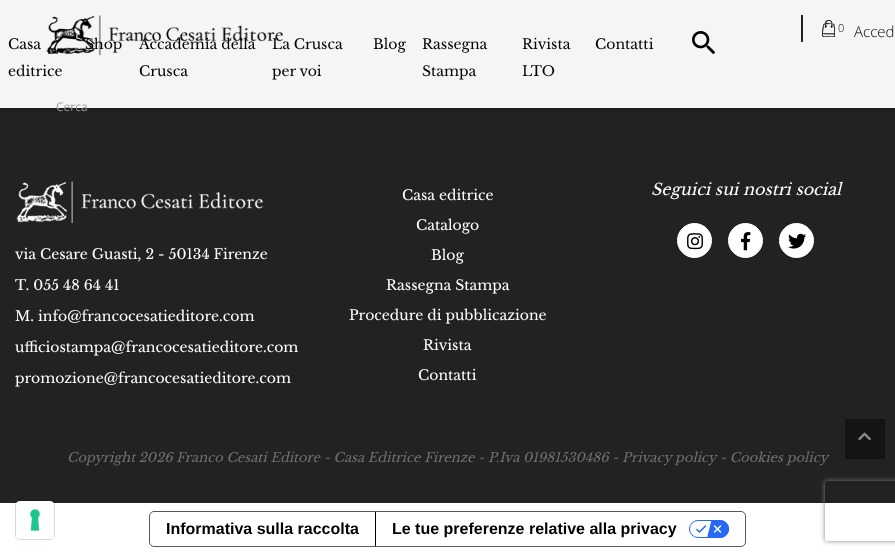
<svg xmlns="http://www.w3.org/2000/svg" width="895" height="555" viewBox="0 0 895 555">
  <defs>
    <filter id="blur1" x="-50%" y="-200%" width="200%" height="500%"><feGaussianBlur stdDeviation="2.5"/></filter>
    <clipPath id="clip1"><path d="M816 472H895V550H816ZM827 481H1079C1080 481 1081 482 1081 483V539C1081 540 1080 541 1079 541H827C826 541 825 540 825 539V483C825 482 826 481 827 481Z" clip-rule="evenodd"/></clipPath>
  </defs>
  <rect width="100%" height="100%" fill="#ffffff"/>
  <rect x="0" y="108" width="895" height="395" fill="#222222"/>
  <rect x="0" y="3" width="895" height="108" fill="#000000" fill-opacity="0.2" filter="url(#blur1)"/>
  <rect x="0" y="0" width="895" height="108" fill="#f7f4f4"/>
  <text x="85" y="49" font-family="Libre Baskerville" font-size="14" fill="#000000">Shop</text>
  <text x="139" y="49" font-family="Libre Baskerville" font-size="14" fill="#000000">Accademia della</text>
  <text x="272" y="49" font-family="Libre Baskerville" font-size="14" fill="#000000">La Crusca</text>
  <image x="46" y="15" width="237" height="41" href="img1.png"/>
  <rect x="801" y="15" width="2" height="27" fill="#222221"/>
  <image x="822" y="20" width="13" height="17" href="img2.png"/>
  <text x="838" y="32" font-family="Open Sans" font-size="11" font-weight="300" fill="#000000">0</text>
  <text x="854" y="37" font-family="Open Sans" font-size="15" font-weight="300" fill="#000000">Acced</text>
  <text x="8" y="49" font-family="Libre Baskerville" font-size="14" fill="#000000">Casa</text>
  <text x="8" y="76" font-family="Libre Baskerville" font-size="14" fill="#000000">editrice</text>
  <text x="139" y="76" font-family="Libre Baskerville" font-size="14" fill="#000000">Crusca</text>
  <text x="272" y="76" font-family="Libre Baskerville" font-size="14" fill="#000000">per voi</text>
  <text x="373" y="49" font-family="Libre Baskerville" font-size="14" fill="#000000">Blog</text>
  <text x="422" y="49" font-family="Libre Baskerville" font-size="14" fill="#000000">Rassegna</text>
  <text x="422" y="76" font-family="Libre Baskerville" font-size="14" fill="#000000">Stampa</text>
  <text x="522" y="49" font-family="Libre Baskerville" font-size="14" fill="#000000">Rivista</text>
  <text x="522" y="76" font-family="Libre Baskerville" font-size="14" fill="#000000">LTO</text>
  <text x="595" y="49" font-family="Libre Baskerville" font-size="14" fill="#000000">Contatti</text>
  <image x="692" y="31" width="23" height="23" href="img3.png"/>
  <text x="56" y="111" font-family="Open Sans" font-size="12" fill="#9c9a9a">Cerca</text>
  <image x="16" y="181" width="247" height="43" href="img4.png"/>
  <text x="15" y="259" font-family="Libre Baskerville" font-size="14" fill="#ffffff">via Cesare Guasti, 2 - 50134 Firenze</text>
  <text x="15" y="290" font-family="Libre Baskerville" font-size="14" fill="#ffffff">T. 055 48 64 41</text>
  <text x="15" y="321" font-family="Libre Baskerville" font-size="14" fill="#ffffff">M. info@francocesatieditore.com</text>
  <text x="15" y="352" font-family="Libre Baskerville" font-size="14" fill="#ffffff">ufficiostampa@francocesatieditore.com</text>
  <text x="15" y="383" font-family="Libre Baskerville" font-size="14" fill="#ffffff">promozione@francocesatieditore.com</text>
  <text x="402" y="200" font-family="Libre Baskerville" font-size="14" fill="#ffffff">Casa editrice</text>
  <text x="416" y="230" font-family="Libre Baskerville" font-size="14" fill="#ffffff">Catalogo</text>
  <text x="431" y="260" font-family="Libre Baskerville" font-size="14" fill="#ffffff">Blog</text>
  <text x="386" y="290" font-family="Libre Baskerville" font-size="14" fill="#ffffff">Rassegna Stampa</text>
  <text x="349" y="320" font-family="Libre Baskerville" font-size="14" fill="#ffffff">Procedure di pubblicazione</text>
  <text x="423" y="350" font-family="Libre Baskerville" font-size="14" fill="#ffffff">Rivista</text>
  <text x="418" y="380" font-family="Libre Baskerville" font-size="14" fill="#ffffff">Contatti</text>
  <text x="651" y="195" font-family="Libre Baskerville" font-size="16" font-style="italic" fill="#ffffff">Seguici sui nostri social</text>
  <circle cx="694.5" cy="240.5" r="17" fill="#ffffff" stroke="#ffffff"/>
  <image x="687" y="233" width="16" height="17" href="img5.png"/>
  <circle cx="745.5" cy="240.5" r="17" fill="#ffffff" stroke="#ffffff"/>
  <image x="741" y="232" width="10" height="19" href="img6.png"/>
  <circle cx="796.5" cy="240.5" r="17" fill="#ffffff" stroke="#ffffff"/>
  <image x="788" y="233" width="18" height="16" href="img7.png"/>
  <text x="67" y="462" font-family="Libre Baskerville" font-size="13" font-style="italic" fill="#707070">Copyright 2026 Franco Cesati Editore - Casa Editrice Firenze - P.Iva 01981530486 -</text>
  <text x="622" y="462" font-family="Libre Baskerville" font-size="13" font-style="italic" fill="#707070">Privacy policy</text>
  <text x="720" y="462" font-family="Libre Baskerville" font-size="13" font-style="italic" fill="#707070">- Cookies policy</text>
  <rect x="845" y="419" width="40" height="40" fill="#141414"/>
  <image x="858" y="432" width="13" height="9" href="img8.png"/>
  <rect x="15.5" y="500.5" width="39" height="39" rx="4.5" fill="none" stroke="#000000" stroke-opacity="0.15"/>
  <rect x="16" y="501" width="38" height="38" rx="4" fill="#ffffff"/>
  <image x="30" y="509" width="10" height="22" href="img9.png"/>
  <rect x="149.5" y="511.5" width="596" height="35" rx="4.5" fill="none" stroke="#595959"/>
  <text x="166" y="534" font-family="Liberation Sans" font-size="16" font-weight="bold" fill="#000000">Informativa sulla raccolta</text>
  <rect x="375" y="512" width="1" height="34" fill="#000000"/>
  <text x="392" y="534" font-family="Liberation Sans" font-size="16" font-weight="bold" fill="#000000">Le tue preferenze relative alla privacy</text>
  <image x="689" y="520" width="40" height="18" href="img10.png"/>
  <g clip-path="url(#clip1)">
    <rect x="825" y="481" width="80" height="60" rx="2" fill="#808080" filter="url(#blur1)"/>
  </g>
</svg>
